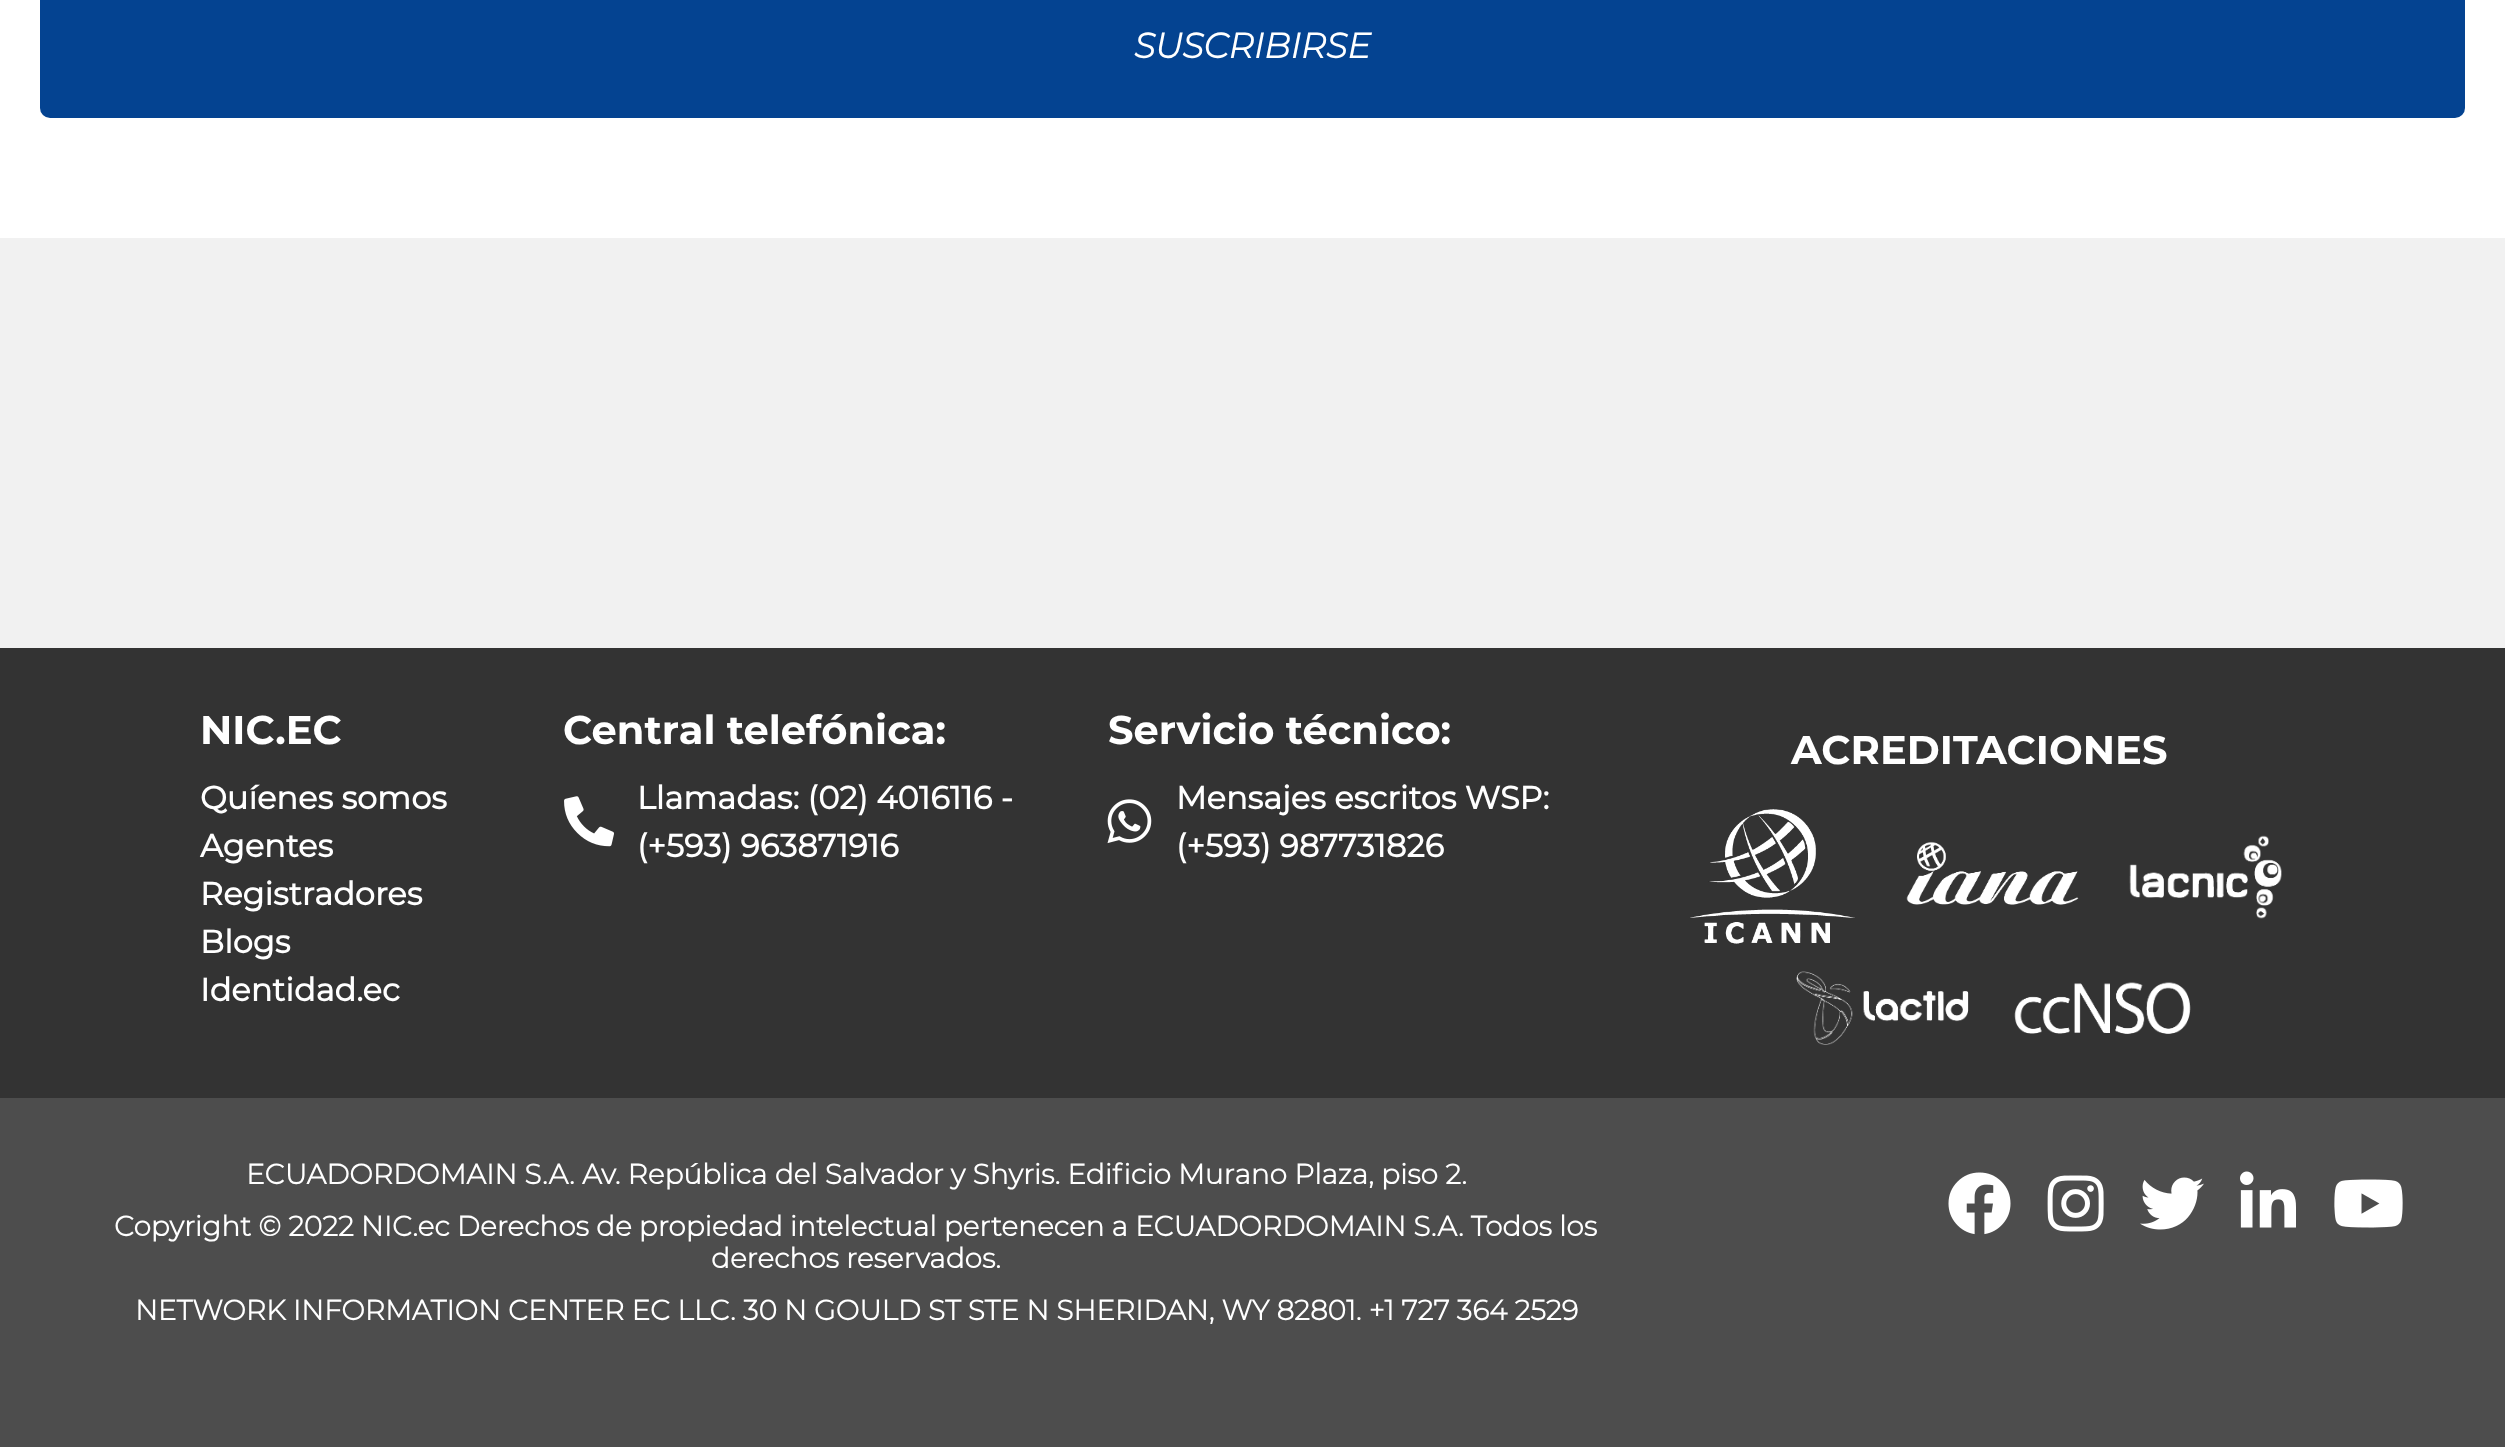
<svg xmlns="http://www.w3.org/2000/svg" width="2505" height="1447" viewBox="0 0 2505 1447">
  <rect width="100%" height="100%" fill="#f1f1f1"/>
  <rect x="0" y="0" width="2505" height="238" fill="#ffffff"/>
  <rect x="40" y="-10" width="2425" height="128" rx="10" fill="#044391"/>
  <text x="1134" y="58" font-family="Montserrat" font-size="35" font-weight="bold" font-style="italic" fill="#ffffff">SUSCRIBIRSE</text>
  <rect x="0" y="648" width="2505" height="450" fill="#333333"/>
  <text x="200" y="744" font-family="Montserrat" font-size="40" font-weight="bold" fill="#ffffff">NIC.EC</text>
  <text x="200" y="809" font-family="'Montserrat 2'" font-size="32" font-weight="bold" fill="#ffffff">Quíenes somos</text>
  <text x="200" y="857" font-family="'Montserrat 2'" font-size="32" font-weight="bold" fill="#ffffff">Agentes</text>
  <text x="200" y="905" font-family="'Montserrat 2'" font-size="32" font-weight="bold" fill="#ffffff">Registradores</text>
  <text x="200" y="953" font-family="'Montserrat 2'" font-size="32" font-weight="bold" fill="#ffffff">Blogs</text>
  <text x="200" y="1001" font-family="'Montserrat 2'" font-size="32" font-weight="bold" fill="#ffffff">Identidad.ec</text>
  <text x="563" y="744" font-family="Montserrat" font-size="40" font-weight="bold" fill="#ffffff">Central telefónica:</text>
  <image x="564" y="796" width="50" height="51" href="img1.png"/>
  <text x="637" y="809" font-family="'Montserrat 2'" font-size="32" font-weight="bold" fill="#ffffff">Llamadas: (02) 4016116 -</text>
  <text x="637" y="857" font-family="'Montserrat 2'" font-size="32" font-weight="bold" fill="#ffffff">(+593) 963871916</text>
  <text x="1108" y="744" font-family="Montserrat" font-size="40" font-weight="bold" fill="#ffffff">Servicio técnico:</text>
  <image x="1107" y="799" width="45" height="45" href="img2.png"/>
  <text x="1176" y="809" font-family="'Montserrat 2'" font-size="32" font-weight="bold" fill="#ffffff">Mensajes escritos WSP:</text>
  <text x="1176" y="857" font-family="'Montserrat 2'" font-size="32" font-weight="bold" fill="#ffffff">(+593) 987731826</text>
  <text x="1791" y="764" font-family="Montserrat" font-size="40" font-weight="bold" fill="#ffffff">ACREDITACIONES</text>
  <image x="1690" y="809" width="165" height="135" href="img3.png"/>
  <image x="1906" y="841" width="173" height="64" href="img4.png"/>
  <image x="2129" y="835" width="153" height="84" href="img5.png"/>
  <image x="1796" y="971" width="173" height="74" href="img6.png"/>
  <image x="2014" y="982" width="177" height="52" href="img7.png"/>
  <rect x="0" y="1098" width="2505" height="349" fill="#4d4d4d"/>
  <text x="246" y="1184" font-family="'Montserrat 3'" font-size="28" font-weight="bold" fill="#ffffff">ECUADORDOMAIN S.A. Av. República del Salvador y Shyris. Edificio Murano Plaza, piso 2.</text>
  <text x="114" y="1236" word-spacing="-0.1" font-family="'Montserrat 3'" font-size="28" font-weight="bold" fill="#ffffff">Copyright © 2022 NIC.ec Derechos de propiedad intelectual pertenecen a ECUADORDOMAIN S.A. Todos los</text>
  <text x="711" y="1268" font-family="'Montserrat 3'" font-size="28" font-weight="bold" fill="#ffffff">derechos reservados.</text>
  <text x="135" y="1320" font-family="'Montserrat 3'" font-size="28" font-weight="bold" fill="#ffffff">NETWORK INFORMATION CENTER EC LLC. 30 N GOULD ST STE N SHERIDAN, WY 82801. +1 727 364 2529</text>
  <image x="1948" y="1172" width="63" height="63" href="img8.png"/>
  <image x="2047" y="1175" width="57" height="57" href="img9.png"/>
  <image x="2140" y="1177" width="64" height="53" href="img10.png"/>
  <image x="2240" y="1171" width="56" height="57" href="img11.png"/>
  <image x="2334" y="1179" width="69" height="49" href="img12.png"/>
</svg>
